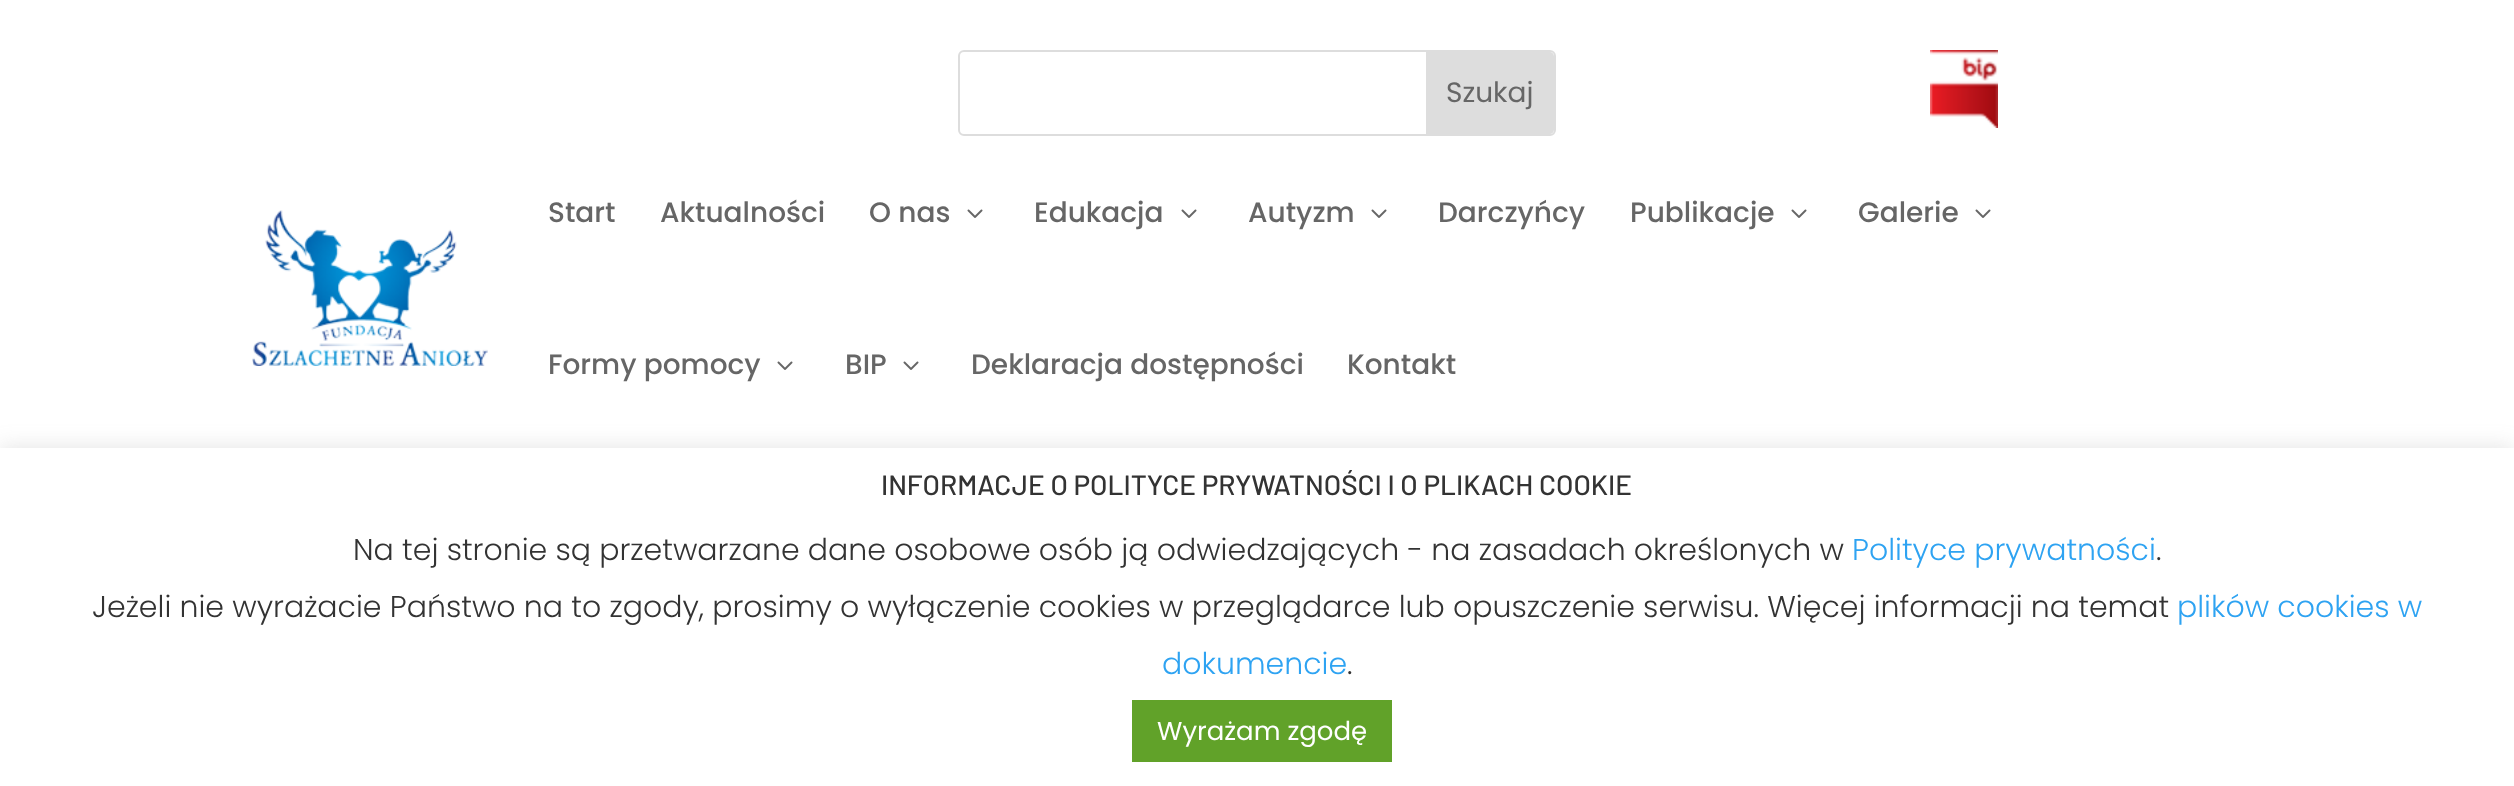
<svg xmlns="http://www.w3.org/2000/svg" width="2514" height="786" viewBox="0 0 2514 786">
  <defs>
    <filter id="blur1" x="-50%" y="-200%" width="200%" height="500%"><feGaussianBlur stdDeviation="10"/></filter>
  </defs>
  <rect width="100%" height="100%" fill="#ffffff"/>
  <rect x="959" y="51" width="596" height="84" rx="5" fill="none" stroke="#dddddd" stroke-width="2"/>
  <path d="M1426 52H1550C1552 52 1554 54 1554 56V130C1554 132 1552 134 1550 134H1426Z" fill="#dddddd"/>
  <text x="1446" y="102" font-family="Poppins" font-size="28" fill="#666666">Szukaj</text>
  <image x="1930" y="50" width="68" height="78" href="img1.png"/>
  <image x="252" y="210" width="236" height="156" href="img2.png"/>
  <text x="548" y="222" font-family="Poppins" font-size="28" font-weight="500" fill="#666666">Start</text>
  <text x="660" y="222" font-family="Poppins" font-size="28" font-weight="500" fill="#666666">Aktualności</text>
  <text x="869" y="222" font-family="Poppins" font-size="28" font-weight="500" fill="#666666">O nas</text>
  <image x="967" y="209" width="16" height="9" href="img3.png"/>
  <text x="1034" y="222" font-family="Poppins" font-size="28" font-weight="500" fill="#666666">Edukacja</text>
  <image x="1181" y="209" width="16" height="9" href="img3.png"/>
  <text x="1248" y="222" font-family="Poppins" font-size="28" font-weight="500" fill="#666666">Autyzm</text>
  <image x="1371" y="209" width="16" height="9" href="img3.png"/>
  <text x="1438" y="222" font-family="Poppins" font-size="28" font-weight="500" fill="#666666">Darczyńcy</text>
  <text x="1630" y="222" font-family="Poppins" font-size="28" font-weight="500" fill="#666666">Publikacje</text>
  <image x="1791" y="209" width="16" height="9" href="img3.png"/>
  <text x="1858" y="222" font-family="Poppins" font-size="28" font-weight="500" fill="#666666">Galerie</text>
  <image x="1975" y="209" width="16" height="9" href="img3.png"/>
  <text x="548" y="374" font-family="Poppins" font-size="28" font-weight="500" fill="#666666">Formy pomocy</text>
  <image x="777" y="361" width="16" height="9" href="img3.png"/>
  <text x="845" y="374" font-family="Poppins" font-size="28" font-weight="500" fill="#666666">BIP</text>
  <image x="903" y="361" width="16" height="9" href="img3.png"/>
  <text x="971" y="374" font-family="Poppins" font-size="28" font-weight="500" fill="#666666">Deklaracja dostępności</text>
  <text x="1347" y="374" font-family="Poppins" font-size="28" font-weight="500" fill="#666666">Kontakt</text>
  <rect x="0" y="446" width="2514" height="338" fill="#acabab" fill-opacity="0.3" filter="url(#blur1)"/>
  <rect x="0" y="448" width="2514" height="338" fill="#ffffff"/>
  <text x="881" y="495" font-family="Barlow" font-size="28" font-weight="500" fill="#333333">INFORMACJE O POLITYCE PRYWATNOŚCI I O PLIKACH COOKIE</text>
  <text x="353" y="560" font-family="Poppins" font-size="30" font-weight="300" fill="#333333">Na tej stronie są przetwarzane dane osobowe osób ją odwiedzających - na zasadach określonych w</text>
  <text x="1852" y="560" font-family="Poppins" font-size="30" font-weight="300" fill="#2ea3f2">Polityce prywatności</text>
  <text x="2156" y="560" font-family="Poppins" font-size="30" font-weight="300" fill="#333333">.</text>
  <text x="92" y="617" font-family="Poppins" font-size="30" font-weight="300" fill="#333333">Jeżeli nie wyrażacie Państwo na to zgody, prosimy o wyłączenie cookies w przeglądarce lub opuszczenie serwisu. Więcej informacji na temat</text>
  <text x="2177" y="617" font-family="Poppins" font-size="30" font-weight="300" fill="#2ea3f2">plików cookies w</text>
  <text x="1162" y="674" font-family="Poppins" font-size="30" font-weight="300" fill="#2ea3f2">dokumencie</text>
  <text x="1347" y="674" font-family="Poppins" font-size="30" font-weight="300" fill="#333333">.</text>
  <rect x="1132" y="700" width="260" height="62" fill="#61a229"/>
  <text x="1157" y="740" font-family="Poppins" font-size="26" fill="#ffffff">Wyrażam zgodę</text>
</svg>
